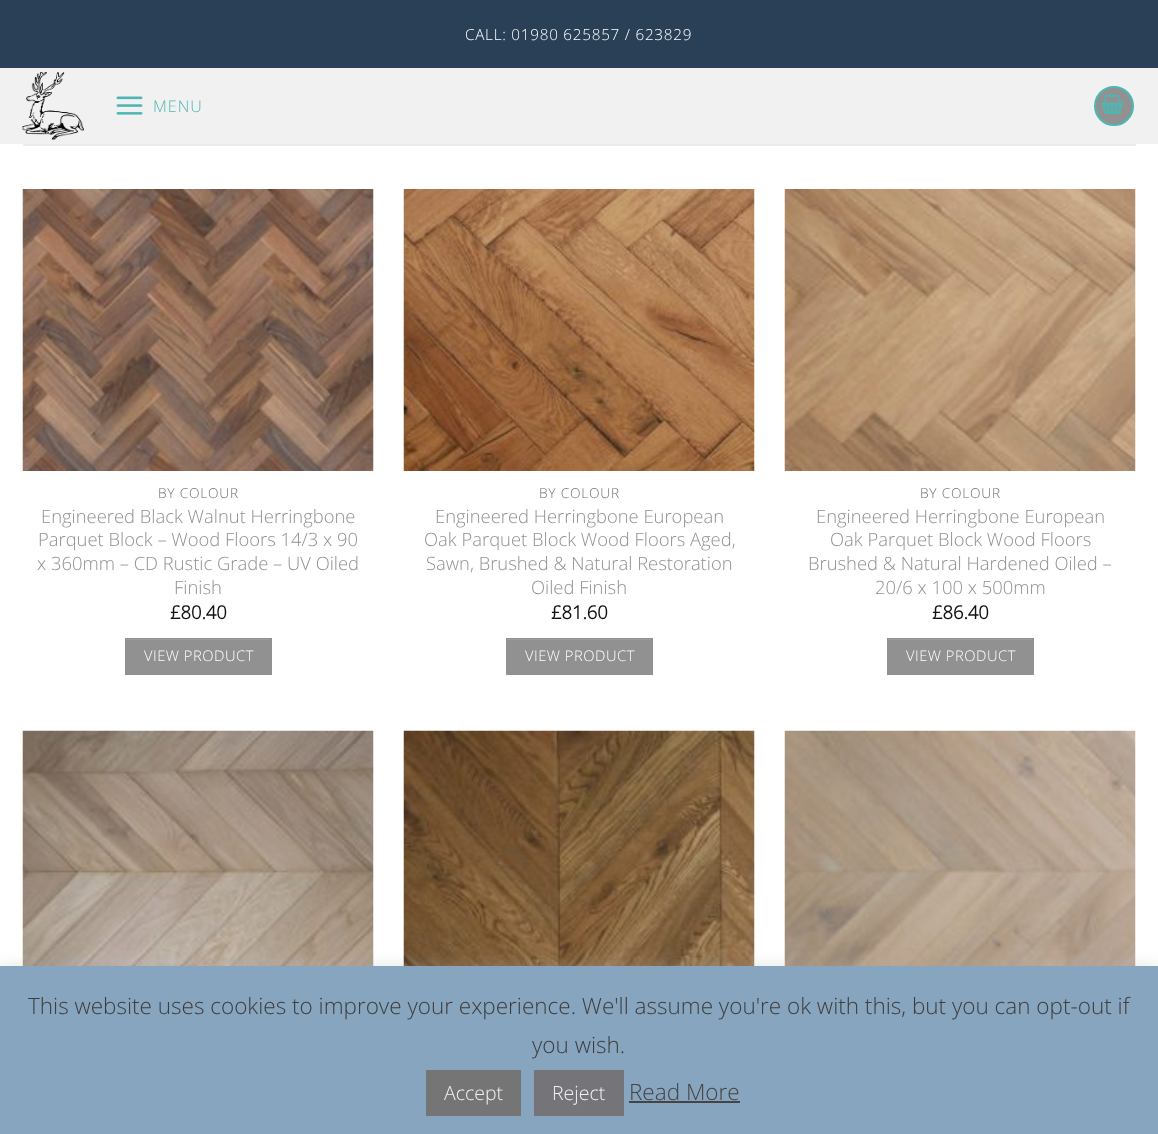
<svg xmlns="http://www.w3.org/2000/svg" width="1158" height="1134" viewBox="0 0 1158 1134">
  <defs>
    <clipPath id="clip1"><rect x="126" y="639" width="144" height="35"/></clipPath>
    <clipPath id="clip2"><rect x="507" y="639" width="144" height="35"/></clipPath>
    <clipPath id="clip3"><rect x="888" y="639" width="144" height="35"/></clipPath>
    <filter id="blur1" x="-50%" y="-200%" width="200%" height="500%"><feGaussianBlur stdDeviation="7.5"/></filter>
  </defs>
  <rect width="100%" height="100%" fill="#ffffff"/>
  <rect x="0" y="0" width="1158" height="68" fill="#294057"/>
  <text x="465" y="40" font-family="Open Sans" font-size="15.25" font-weight="300" letter-spacing="0.75" fill="#ffffff">CALL: 01980 625857 / 623829</text>
  <rect x="0" y="68" width="1158" height="76" fill="#f1f1f1"/>
  <image x="22" y="72" width="62" height="68" href="img1.png"/>
  <image x="116" y="96" width="27" height="19" href="img2.png"/>
  <text x="153" y="112" font-family="Open Sans" font-size="16" font-weight="300" letter-spacing="1" fill="#4db7b3">MENU</text>
  <circle cx="1114" cy="106" r="19" fill="#919191" stroke="#4db7b3" stroke-width="2"/>
  <image x="1101" y="94" width="23" height="20" href="img3.png"/>
  <rect x="23" y="144" width="1113" height="2" fill="#ededed"/>
  <image x="22" y="189" width="352" height="282" href="img4.png"/>
  <text x="158" y="498" font-family="Open Sans" font-size="13.75" font-weight="300" letter-spacing="0.75" fill="#6e6e6e">BY COLOUR</text>
  <text x="41" y="523" font-family="Open Sans" font-size="18.4" font-weight="300" fill="#919191">Engineered Black Walnut Herringbone</text>
  <text x="38" y="546" font-family="Open Sans" font-size="18.4" font-weight="300" fill="#919191">Parquet Block – Wood Floors 14/3 x 90</text>
  <text x="37" y="570" font-family="Open Sans" font-size="18.4" font-weight="300" fill="#919191">x 360mm – CD Rustic Grade – UV Oiled</text>
  <text x="174" y="594" font-family="Open Sans" font-size="18.4" font-weight="300" fill="#919191">Finish</text>
  <text x="170" y="619" font-family="Open Sans" font-size="18.4" font-weight="bold" fill="#111111">£80.40</text>
  <rect x="125" y="638" width="147" height="37" fill="#919191"/>
  <g clip-path="url(#clip1)">
    <path d="M-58 490H454V822H-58ZM92 640H308V675H92Z" fill="#9c9c9c" fill-rule="evenodd"/>
  </g>
  <text x="144" y="661" font-family="Open Sans" font-size="14.75" font-weight="300" letter-spacing="0.5" fill="#ffffff">VIEW PRODUCT</text>
  <image x="403" y="189" width="352" height="282" href="img5.png"/>
  <text x="539" y="498" font-family="Open Sans" font-size="13.75" font-weight="300" letter-spacing="0.75" fill="#6e6e6e">BY COLOUR</text>
  <text x="435" y="523" font-family="Open Sans" font-size="18.4" font-weight="300" fill="#919191">Engineered Herringbone European</text>
  <text x="424" y="546" font-family="Open Sans" font-size="18.4" font-weight="300" fill="#919191">Oak Parquet Block Wood Floors Aged,</text>
  <text x="426" y="570" font-family="Open Sans" font-size="18.4" font-weight="300" fill="#919191">Sawn, Brushed &amp; Natural Restoration</text>
  <text x="531" y="594" font-family="Open Sans" font-size="18.4" font-weight="300" fill="#919191">Oiled Finish</text>
  <text x="551" y="619" font-family="Open Sans" font-size="18.4" font-weight="bold" fill="#111111">£81.60</text>
  <rect x="506" y="638" width="147" height="37" fill="#919191"/>
  <g clip-path="url(#clip2)">
    <path d="M322 490H836V822H322ZM472 640H688V675H472Z" fill="#9c9c9c" fill-rule="evenodd"/>
  </g>
  <text x="525" y="661" font-family="Open Sans" font-size="14.75" font-weight="300" letter-spacing="0.5" fill="#ffffff">VIEW PRODUCT</text>
  <image x="784" y="189" width="352" height="282" href="img6.png"/>
  <text x="920" y="498" font-family="Open Sans" font-size="13.75" font-weight="300" letter-spacing="0.75" fill="#6e6e6e">BY COLOUR</text>
  <text x="816" y="523" font-family="Open Sans" font-size="18.4" font-weight="300" fill="#919191">Engineered Herringbone European</text>
  <text x="830" y="546" font-family="Open Sans" font-size="18.4" font-weight="300" fill="#919191">Oak Parquet Block Wood Floors</text>
  <text x="808" y="570" font-family="Open Sans" font-size="18.4" font-weight="300" fill="#919191">Brushed &amp; Natural Hardened Oiled –</text>
  <text x="875" y="594" font-family="Open Sans" font-size="18.4" font-weight="300" fill="#919191">20/6 x 100 x 500mm</text>
  <text x="932" y="619" font-family="Open Sans" font-size="18.4" font-weight="bold" fill="#111111">£86.40</text>
  <rect x="887" y="638" width="147" height="37" fill="#919191"/>
  <g clip-path="url(#clip3)">
    <path d="M704 490H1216V822H704ZM854 640H1070V675H854Z" fill="#9c9c9c" fill-rule="evenodd"/>
  </g>
  <text x="906" y="661" font-family="Open Sans" font-size="14.75" font-weight="300" letter-spacing="0.5" fill="#ffffff">VIEW PRODUCT</text>
  <image x="22" y="730" width="352" height="236" href="img7.png"/>
  <image x="403" y="730" width="352" height="236" href="img8.png"/>
  <image x="784" y="730" width="352" height="236" href="img9.png"/>
  <rect x="0" y="965" width="1158" height="168" fill="#acabab" fill-opacity="0.3" filter="url(#blur1)"/>
  <rect x="0" y="966" width="1158" height="168" fill="#87a5bf"/>
  <text x="28" y="1014" font-family="Open Sans" font-size="22.5" font-weight="300" fill="#3d3d3d">This website uses cookies to improve your experience. We'll assume you're ok with this, but you can opt-out if</text>
  <text x="532" y="1053" font-family="Open Sans" font-size="22.5" font-weight="300" fill="#3d3d3d">you wish.</text>
  <rect x="426" y="1070" width="95" height="46" fill="#757575"/>
  <text x="444" y="1100" font-family="Open Sans" font-size="19.5" font-weight="300" fill="#f2f2f2">Accept</text>
  <rect x="534" y="1070" width="90" height="46" fill="#757579"/>
  <text x="552" y="1100" font-family="Open Sans" font-size="19.5" font-weight="300" fill="#f2f2f2">Reject</text>
  <text x="629" y="1100" font-family="Open Sans" font-size="22.5" font-weight="300" fill="#444444">Read More</text>
  <rect x="629" y="1101" width="111" height="2" fill="#444444"/>
</svg>
